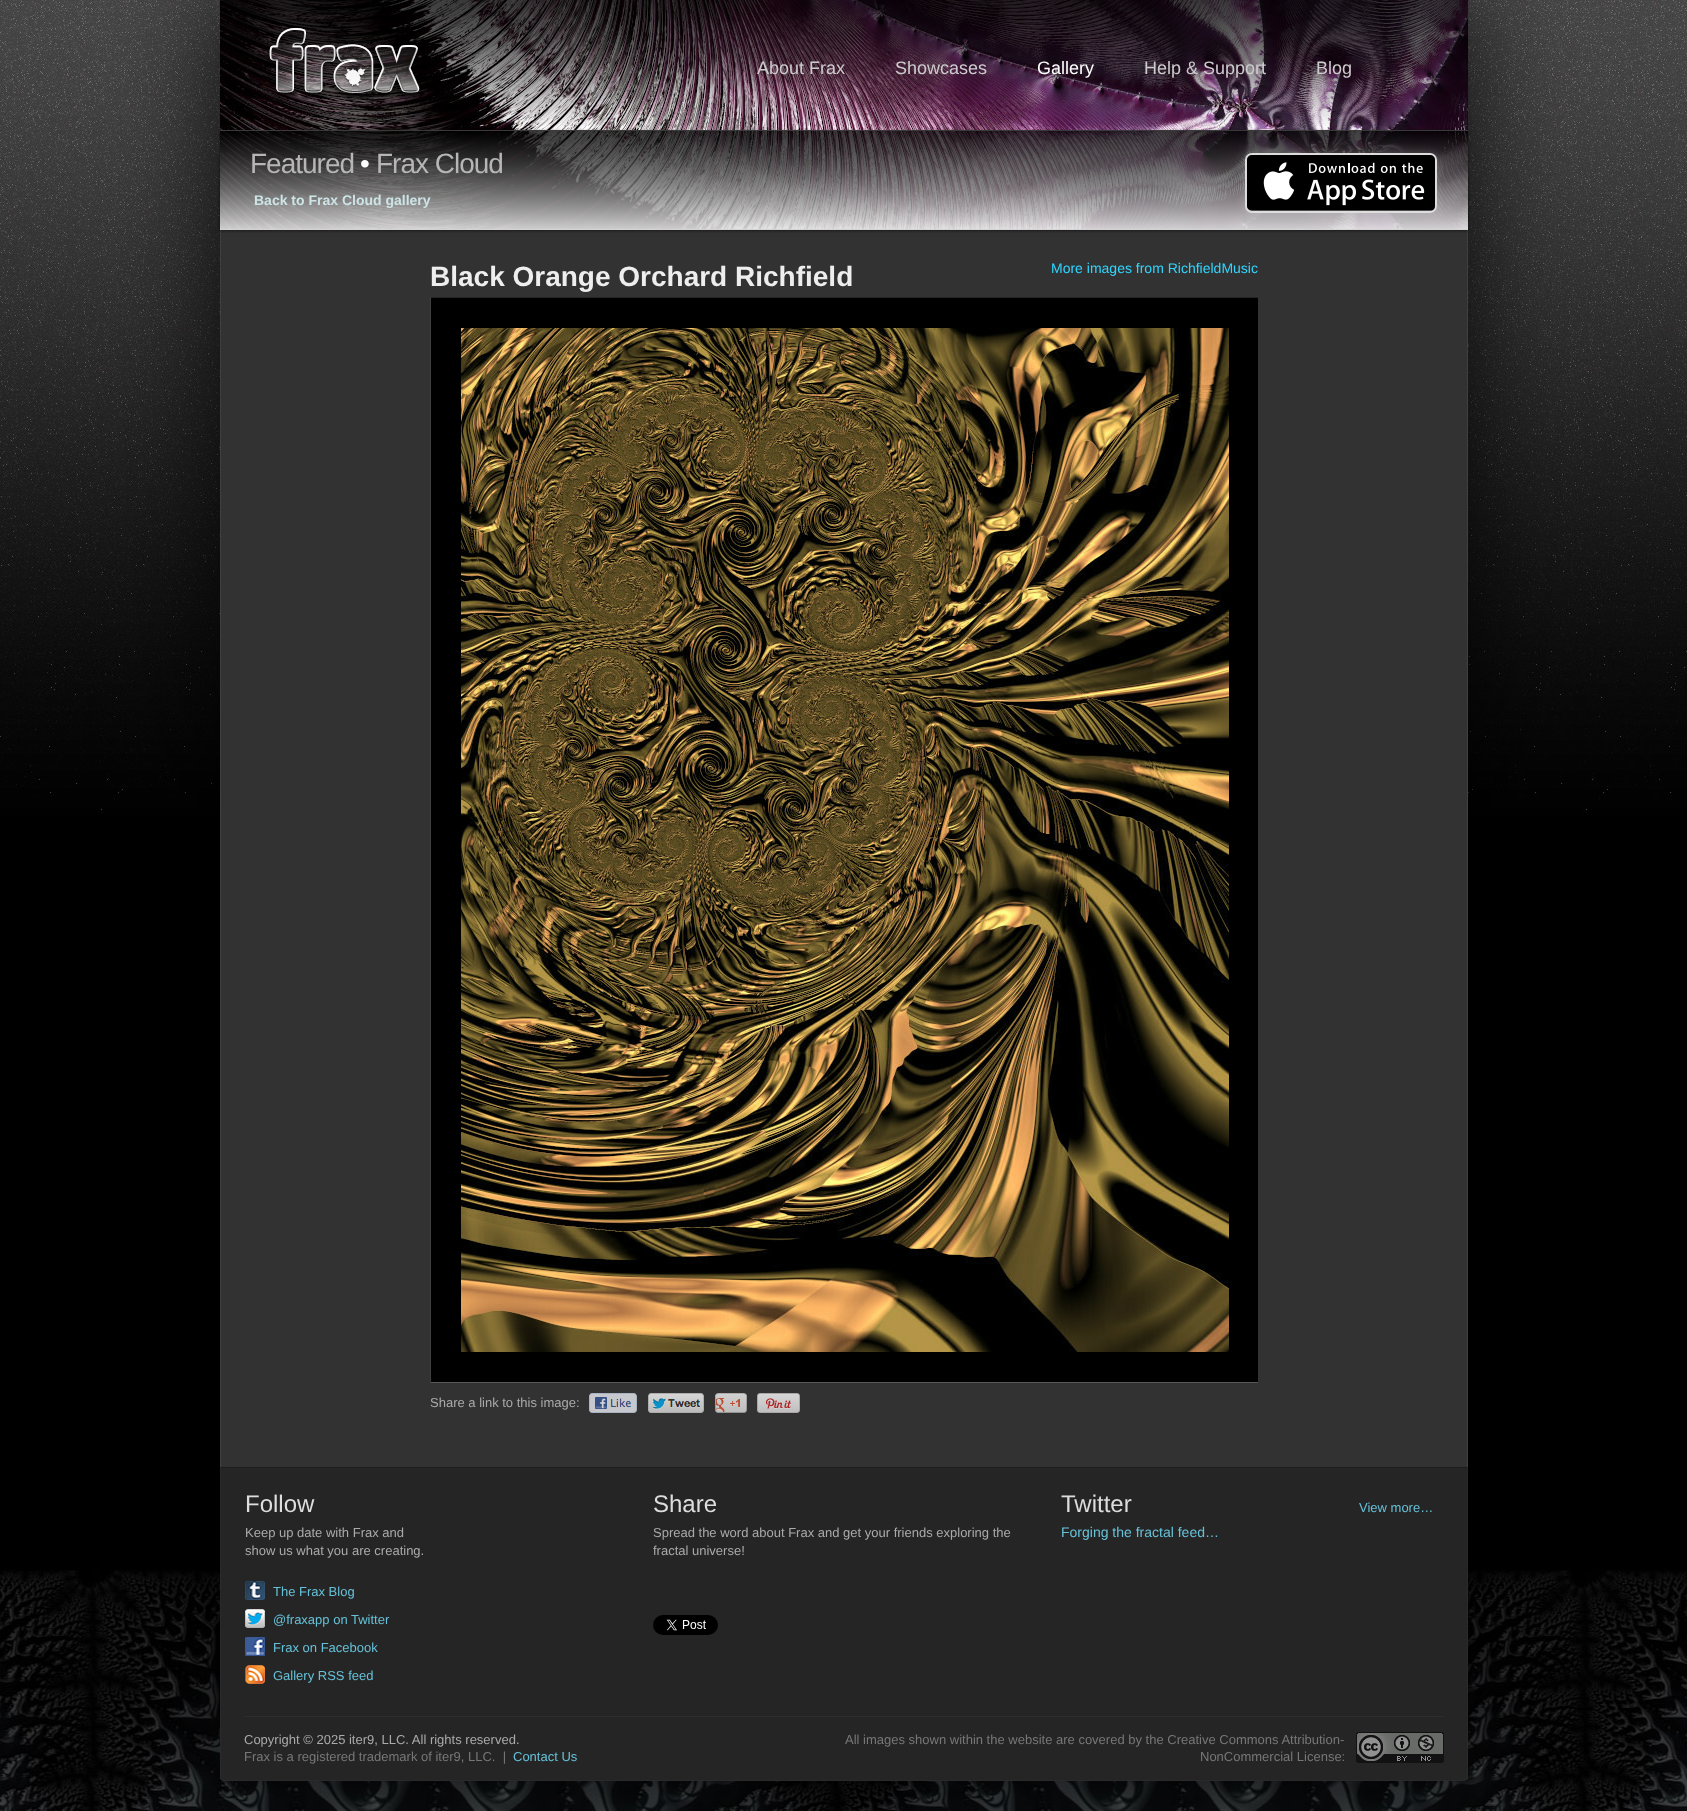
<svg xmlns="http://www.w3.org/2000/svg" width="1687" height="1811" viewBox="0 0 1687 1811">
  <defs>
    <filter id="blur1" x="-50%" y="-200%" width="200%" height="500%"><feGaussianBlur stdDeviation="50"/></filter>
    <clipPath id="clip1"><path d="M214 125H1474V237H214ZM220 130H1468V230H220Z" clip-rule="evenodd"/></clipPath>
    <filter id="blur2" x="-50%" y="-200%" width="200%" height="500%"><feGaussianBlur stdDeviation="1.5"/></filter>
    <linearGradient id="g1" gradientUnits="userSpaceOnUse" x1="844" y1="131" x2="844" y2="229"><stop offset="0" stop-color="#000000" stop-opacity="0.5"/><stop offset="1" stop-color="#ffffff" stop-opacity="0.8"/></linearGradient>
    <filter id="blur3" x="-50%" y="-200%" width="200%" height="500%"><feGaussianBlur stdDeviation="5"/></filter>
  </defs>
  <rect width="100%" height="100%" fill="#000000"/>
  <image x="0" y="0" width="1687" height="815" href="img1.png"/>
  <image x="0" y="1570" width="1687" height="241" href="img2.png"/>
  <rect x="220" y="0" width="1248" height="1776" rx="5" fill="#000000" fill-opacity="0.8" filter="url(#blur1)"/>
  <rect x="221" y="230" width="1246" height="1237" fill="#323232"/>
  <path d="M220 0H1468V1771C1468 1774 1466 1776 1463 1776H225C222 1776 220 1774 220 1771ZM221 0H1467V1771C1467 1773 1465 1775 1463 1775H225C223 1775 221 1773 221 1771Z" fill="#3f3f3f" fill-rule="evenodd"/>
  <image x="220" y="0" width="1248" height="229" href="img3.png"/>
  <image x="220" y="0" width="1248" height="126" href="img4.png"/>
  <text x="757" y="74" font-family="Liberation Sans" font-size="18" fill="#cccccc">About Frax</text>
  <text x="895" y="74" font-family="Liberation Sans" font-size="18" fill="#cccccc">Showcases</text>
  <text x="1037" y="74" font-family="Liberation Sans" font-size="18" fill="#ffffff">Gallery</text>
  <text x="1144" y="74" font-family="Liberation Sans" font-size="18" fill="#cccccc">Help &amp; Support</text>
  <text x="1316" y="74" font-family="Liberation Sans" font-size="18" fill="#cccccc">Blog</text>
  <g clip-path="url(#clip1)">
    <rect x="220" y="131" width="1248" height="100" fill="#000000" fill-opacity="0.5" filter="url(#blur2)"/>
  </g>
  <rect x="220" y="131" width="1248" height="98" fill="#000000" fill-opacity="0.5"/>
  <rect x="220" y="131" width="1248" height="98" fill="url(#g1)"/>
  <rect x="220" y="130" width="1248" height="1" fill="#3a3a3a"/>
  <rect x="220" y="229" width="1248" height="1" fill="#d3d3d3"/>
  <text x="250" y="173" font-family="Liberation Sans" font-size="28" letter-spacing="-1" fill="#b6b6b6">Featured</text>
  <text x="360" y="173" font-family="Liberation Sans" font-size="28" letter-spacing="-1" fill="#ffffff">•</text>
  <text x="376" y="173" font-family="Liberation Sans" font-size="28" letter-spacing="-1" fill="#b6b6b6">Frax Cloud</text>
  <rect x="1245" y="153" width="192" height="60" rx="7" fill="#ffffff" fill-opacity="0.2" filter="url(#blur3)"/>
  <rect x="1246" y="154" width="190" height="58" rx="6" fill="none" stroke="#dddddd" stroke-width="2"/>
  <image x="1247" y="155" width="188" height="56" href="img5.png"/>
  <text x="254" y="205" font-family="Liberation Sans" font-size="14" font-weight="bold" fill="#cde4e6">Back to Frax Cloud gallery</text>
  <text x="430" y="286" font-family="Liberation Sans" font-size="28" font-weight="bold" fill="#eeeeee">Black Orange Orchard Richfield</text>
  <text x="1051" y="273" font-family="Liberation Sans" font-size="14" fill="#30d6ff">More images from RichfieldMusic</text>
  <rect x="431" y="298" width="827" height="1084" fill="#000000"/>
  <rect x="430" y="297" width="828" height="1" fill="#252525"/>
  <rect x="430" y="1382" width="828" height="1" fill="#585858"/>
  <rect x="430" y="297" width="1" height="1086" fill="#3f3f3f"/>
  <image x="461" y="328" width="768" height="1024" href="img6.png"/>
  <text x="430" y="1407" font-family="Liberation Sans" font-size="13" fill="#aaaaaa">Share a link to this image:</text>
  <image x="589" y="1393" width="48" height="20" href="img7.png"/>
  <image x="648" y="1393" width="56" height="20" href="img8.png"/>
  <image x="715" y="1393" width="32" height="20" href="img9.png"/>
  <image x="757" y="1393" width="43" height="20" href="img10.png"/>
  <path d="M220 1467H1468V1776C1468 1779 1466 1781 1463 1781H225C222 1781 220 1779 220 1776Z" fill="#252525"/>
  <path d="M220 1467L221 1468H1467L1468 1467Z" fill="#1e1e1e"/>
  <path d="M1468 1467L1467 1468V1776L1466 1779L1467 1780C1468 1779 1468 1778 1468 1776Z" fill="#2a2a2a"/>
  <path d="M225 1781H1463C1464 1781 1466 1780 1467 1780L1466 1779L1463 1780H225L222 1779L221 1780C222 1780 224 1781 225 1781Z" fill="#2a2a2a"/>
  <path d="M221 1468L220 1467V1776C220 1778 220 1779 221 1780L222 1779L221 1776Z" fill="#2a2a2a"/>
  <text x="245" y="1512" font-family="Liberation Sans" font-size="24" fill="#dddddd">Follow</text>
  <text x="245" y="1537" font-family="Liberation Sans" font-size="13" fill="#aaaaaa">Keep up date with Frax and</text>
  <text x="245" y="1555" font-family="Liberation Sans" font-size="13" fill="#aaaaaa">show us what you are creating.</text>
  <image x="245" y="1581" width="20" height="19" href="img11.png"/>
  <text x="273" y="1596" font-family="Liberation Sans" font-size="13" fill="#66c1d8">The Frax Blog</text>
  <image x="245" y="1609" width="20" height="19" href="img12.png"/>
  <text x="273" y="1624" font-family="Liberation Sans" font-size="13" fill="#66c1d8">@fraxapp on Twitter</text>
  <image x="245" y="1637" width="20" height="19" href="img13.png"/>
  <text x="273" y="1652" font-family="Liberation Sans" font-size="13" fill="#66c1d8">Frax on Facebook</text>
  <image x="245" y="1665" width="20" height="19" href="img14.png"/>
  <text x="273" y="1680" font-family="Liberation Sans" font-size="13" fill="#66c1d8">Gallery RSS feed</text>
  <text x="653" y="1512" font-family="Liberation Sans" font-size="24" fill="#dddddd">Share</text>
  <text x="653" y="1537" font-family="Liberation Sans" font-size="13" fill="#aaaaaa">Spread the word about Frax and get your friends exploring the</text>
  <text x="653" y="1555" font-family="Liberation Sans" font-size="13" fill="#aaaaaa">fractal universe!</text>
  <image x="653" y="1615" width="65" height="20" href="img15.png"/>
  <text x="1061" y="1512" font-family="Liberation Sans" font-size="24" fill="#dddddd">Twitter</text>
  <text x="1359" y="1512" font-family="Liberation Sans" font-size="13" fill="#66c1d8">View more…</text>
  <text x="1061" y="1537" font-family="Liberation Sans" font-size="14" fill="#66c1d8">Forging the fractal feed…</text>
  <rect x="244" y="1716" width="1200" height="1" fill="#2d2d2d"/>
  <text x="244" y="1744" font-family="Liberation Sans" font-size="13" fill="#aaaaaa">Copyright © 2025 iter9, LLC. All rights reserved.</text>
  <text x="244" y="1761" font-family="Liberation Sans" font-size="13" fill="#777777" xml:space="preserve">Frax is a registered trademark of iter9, LLC.  |</text>
  <text x="513" y="1761" font-family="Liberation Sans" font-size="13" fill="#66c1d8">Contact Us</text>
  <text x="845" y="1744" font-family="Liberation Sans" font-size="13" fill="#777777">All images shown within the website are covered by the Creative Commons Attribution-</text>
  <image x="1356" y="1732" width="88" height="31" href="img16.png"/>
  <text x="1200" y="1761" font-family="Liberation Sans" font-size="13" fill="#777777">NonCommercial License:</text>
</svg>
